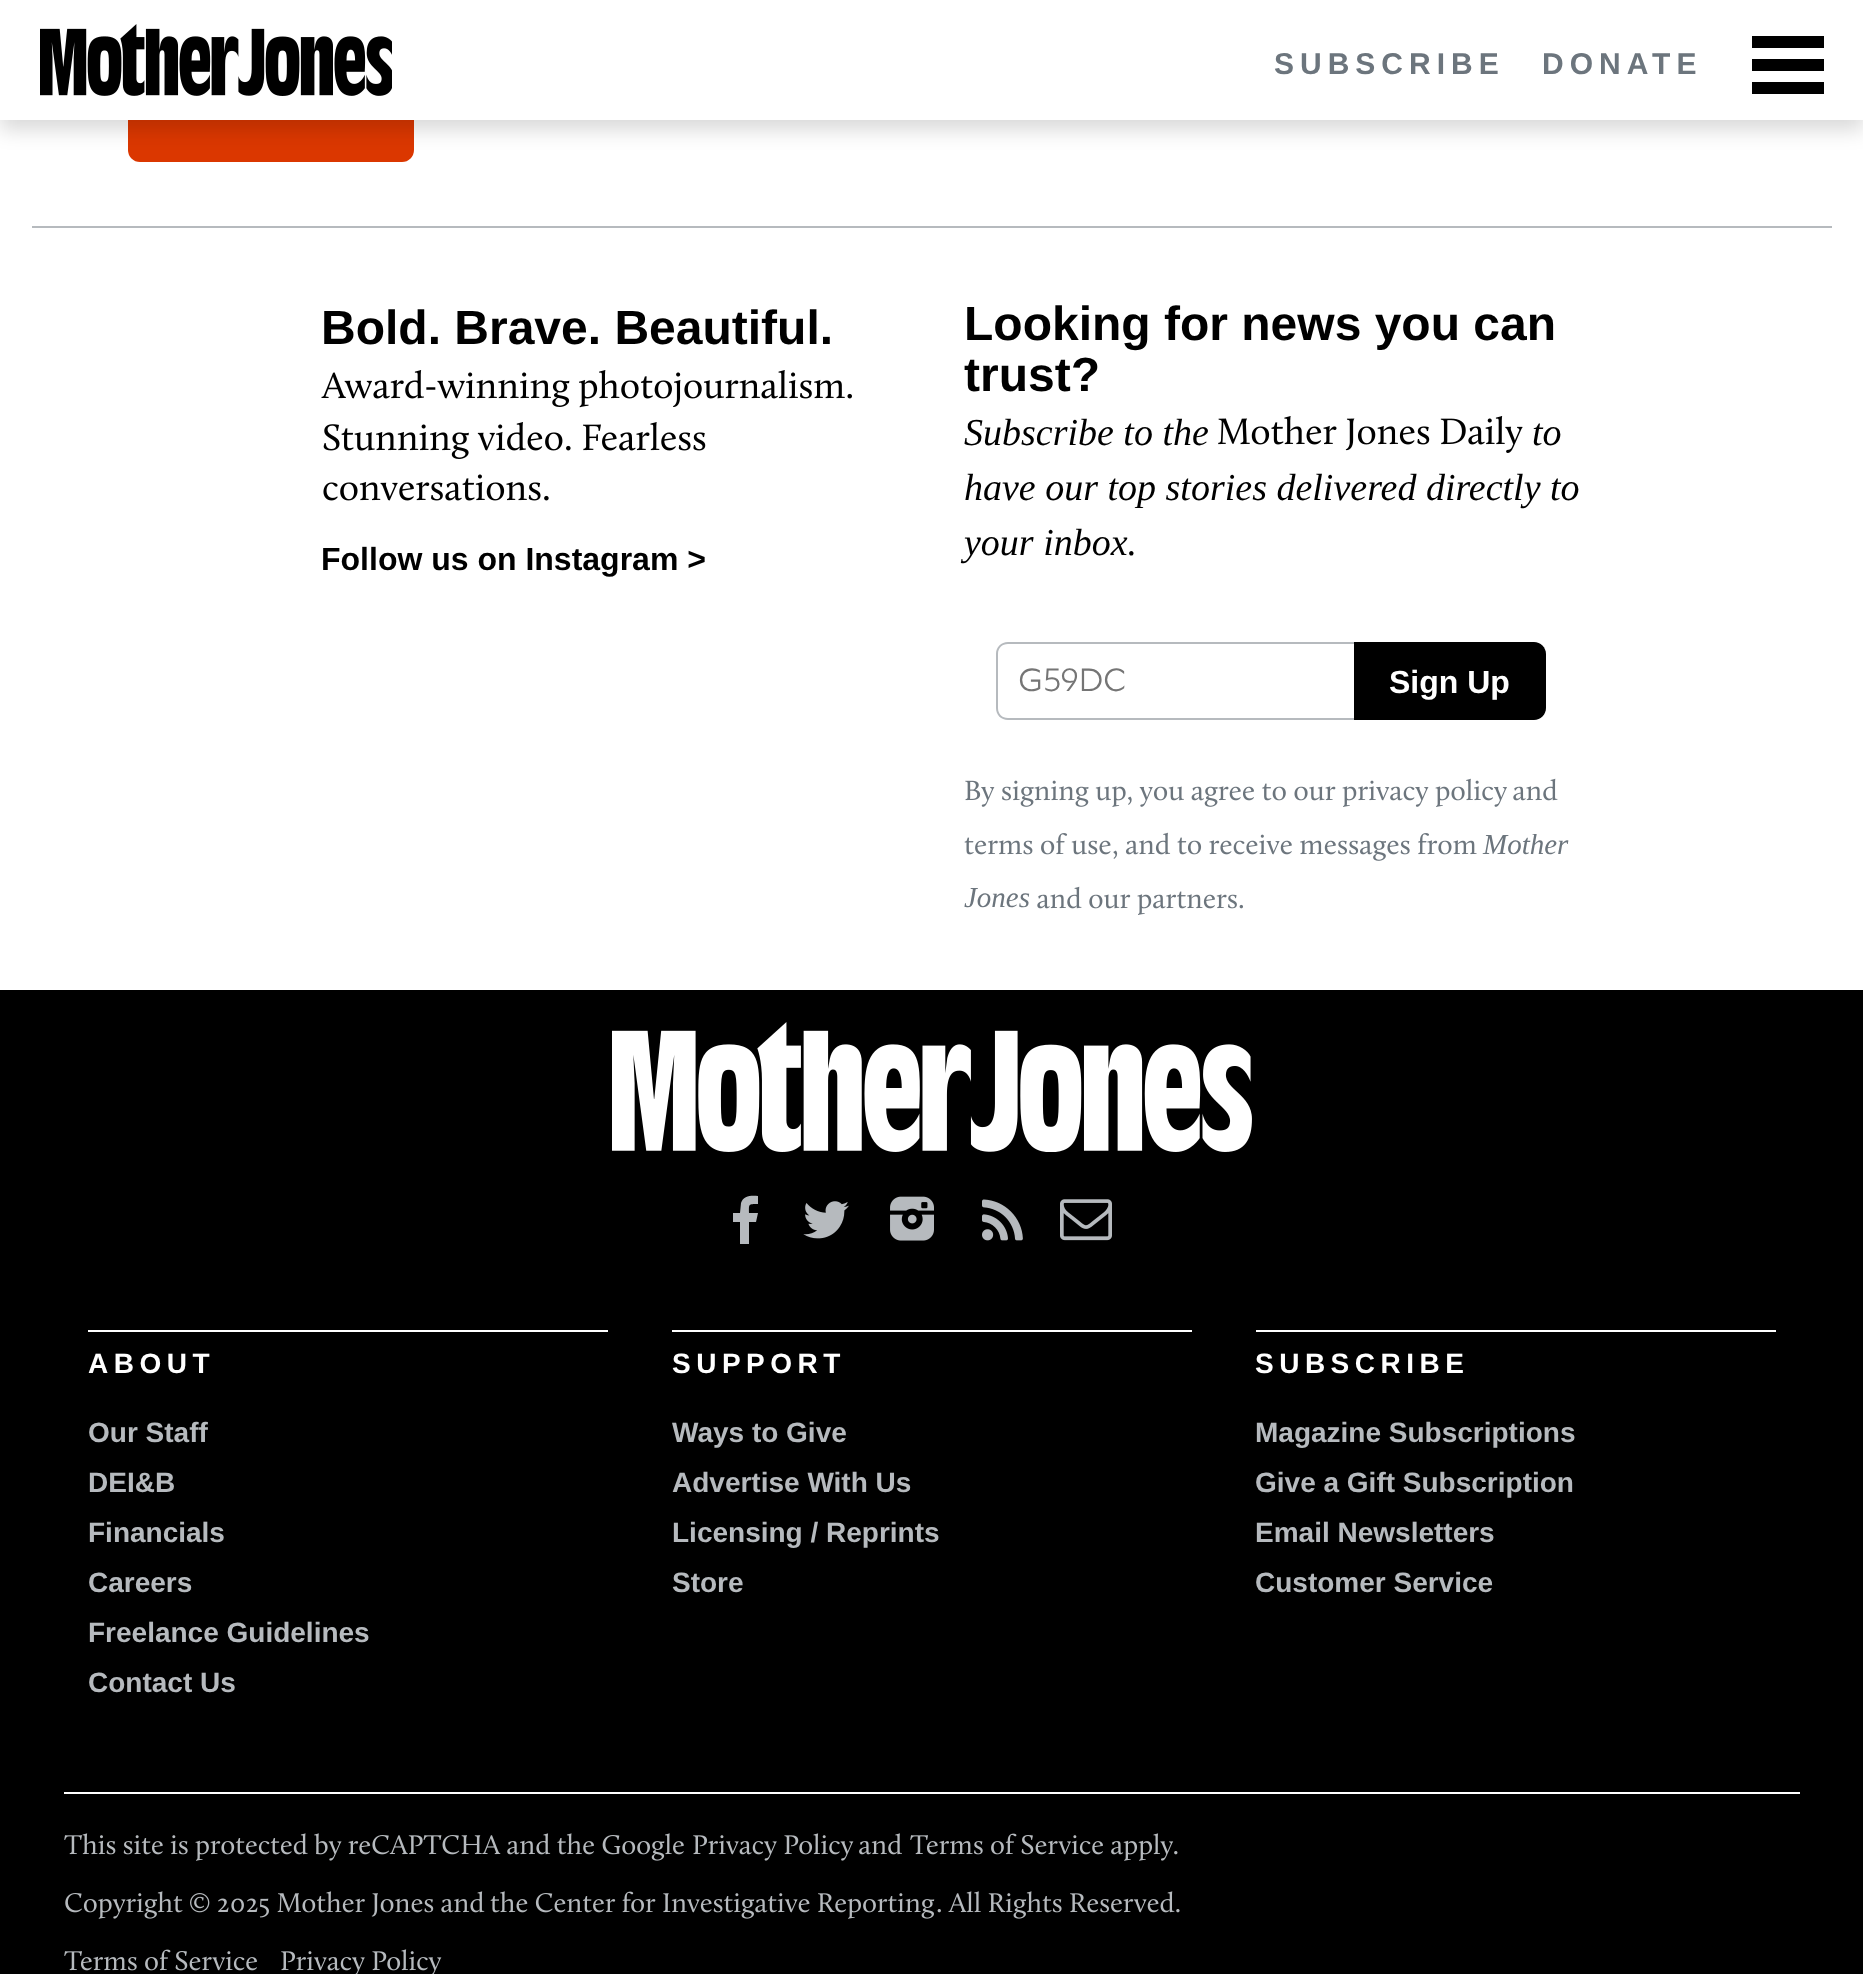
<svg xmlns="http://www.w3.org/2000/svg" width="1863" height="1974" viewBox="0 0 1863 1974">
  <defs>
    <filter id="blur1" x="-50%" y="-200%" width="200%" height="500%"><feGaussianBlur stdDeviation="10"/></filter>
  </defs>
  <rect width="100%" height="100%" fill="#ffffff"/>
  <rect x="128" y="62" width="286" height="100" rx="12" fill="#db3700"/>
  <rect x="0" y="10" width="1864" height="120" fill="#000000" fill-opacity="0.15" filter="url(#blur1)"/>
  <rect x="0" y="0" width="1863" height="120" fill="#ffffff"/>
  <image x="40" y="24" width="352" height="72" href="img1.png"/>
  <text x="1274" y="74" font-family="Liberation Sans" font-size="30" font-weight="bold" letter-spacing="6" fill="#6c757d">SUBSCRIBE</text>
  <text x="1542" y="74" font-family="Liberation Sans" font-size="30" font-weight="bold" letter-spacing="6" fill="#6c757d">DONATE</text>
  <rect x="1752" y="36" width="72" height="12" fill="#000000"/>
  <rect x="1752" y="59" width="72" height="12" fill="#000000"/>
  <rect x="1752" y="82" width="72" height="12" fill="#000000"/>
  <rect x="32" y="226" width="1800" height="2" fill="#b6babe"/>
  <text x="321" y="344" font-family="Liberation Sans" font-size="48" font-weight="bold" fill="#000000">Bold. Brave. Beautiful.</text>
  <image x="321" y="370" width="531" height="38" href="img2.png"/>
  <image x="323" y="422" width="383" height="37" href="img3.png"/>
  <image x="323" y="474" width="226" height="27" href="img4.png"/>
  <text x="321" y="570" font-family="Liberation Sans" font-size="32" font-weight="bold" fill="#000000">Follow us on Instagram &gt;</text>
  <text x="964" y="340" font-family="Liberation Sans" font-size="48" font-weight="bold" fill="#000000">Looking for news you can</text>
  <text x="964" y="391" font-family="Liberation Sans" font-size="48" font-weight="bold" fill="#000000">trust?</text>
  <text x="964" y="445" font-family="Liberation Serif" font-size="38" font-style="italic" fill="#000000">Subscribe to the</text>
  <image x="1218" y="416" width="305" height="37" href="img5.png"/>
  <text x="1532" y="445" font-family="Liberation Serif" font-size="38" font-style="italic" fill="#000000">to</text>
  <text x="964" y="500" font-family="Liberation Serif" font-size="38" font-style="italic" fill="#000000">have our top stories delivered directly to</text>
  <text x="964" y="555" font-family="Liberation Serif" font-size="38" font-style="italic" fill="#000000">your inbox.</text>
  <path d="M1008 642H1354V720H1008C1001 720 996 715 996 708V654C996 647 1001 642 1008 642ZM1008 644H1354V718H1008C1002 718 998 714 998 708V654C998 648 1002 644 1008 644Z" fill="#b6babe" fill-rule="evenodd"/>
  <text x="1018" y="691" font-family="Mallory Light" font-size="32" font-weight="300" letter-spacing="-0.5" fill="#757575">G59DC</text>
  <path d="M1354 642H1534C1540.5 642 1546 647.5 1546 654V708C1546 714.5 1540.5 720 1534 720H1354Z" fill="#000000"/>
  <text x="1389" y="693" font-family="Liberation Sans" font-size="32" font-weight="bold" fill="#ffffff">Sign Up</text>
  <image x="965" y="780" width="371" height="27" href="img6.png"/>
  <image x="1342" y="778" width="165" height="29" href="img7.png"/>
  <image x="1513" y="778" width="45" height="23" href="img8.png"/>
  <image x="964" y="833" width="147" height="22" href="img9.png"/>
  <image x="1113" y="832" width="364" height="29" href="img10.png"/>
  <text x="1483" y="854" font-family="Liberation Serif" font-size="29" font-style="italic" fill="#6c757d">Mother</text>
  <text x="964" y="907" font-family="Liberation Serif" font-size="29" font-style="italic" fill="#6c757d">Jones</text>
  <image x="1037" y="886" width="206" height="29" href="img11.png"/>
  <rect x="0" y="990" width="1863" height="984" fill="#000000"/>
  <image x="612" y="1022" width="640" height="130" href="img12.png"/>
  <path d="M758 1196V1204C748 1204 749 1204 749 1213H758L756 1222H749V1244H740V1222H733V1213H740L741 1203C743 1196 751 1195 758 1196Z" fill="#b6babe"/>
  <image x="803" y="1201" width="46" height="38" href="img13.png"/>
  <image x="890" y="1196" width="44" height="45" href="img14.png"/>
  <image x="982" y="1199" width="41" height="42" href="img15.png"/>
  <image x="1060" y="1199" width="52" height="42" href="img16.png"/>
  <rect x="88" y="1330" width="520" height="2" fill="#ffffff"/>
  <text x="88" y="1373" font-family="Liberation Sans" font-size="28" font-weight="bold" letter-spacing="5.5" fill="#ffffff">ABOUT</text>
  <text x="88" y="1442" font-family="Liberation Sans" font-size="28" font-weight="bold" fill="#b6babe">Our Staff</text>
  <text x="88" y="1492" font-family="Liberation Sans" font-size="28" font-weight="bold" fill="#b6babe">DEI&amp;B</text>
  <text x="88" y="1542" font-family="Liberation Sans" font-size="28" font-weight="bold" fill="#b6babe">Financials</text>
  <text x="88" y="1592" font-family="Liberation Sans" font-size="28" font-weight="bold" fill="#b6babe">Careers</text>
  <text x="88" y="1642" font-family="Liberation Sans" font-size="28" font-weight="bold" fill="#b6babe">Freelance Guidelines</text>
  <text x="88" y="1692" font-family="Liberation Sans" font-size="28" font-weight="bold" fill="#b6babe">Contact Us</text>
  <rect x="672" y="1330" width="520" height="2" fill="#ffffff"/>
  <text x="672" y="1373" font-family="Liberation Sans" font-size="28" font-weight="bold" letter-spacing="5.5" fill="#ffffff">SUPPORT</text>
  <text x="672" y="1442" font-family="Liberation Sans" font-size="28" font-weight="bold" fill="#b6babe">Ways to Give</text>
  <text x="672" y="1492" font-family="Liberation Sans" font-size="28" font-weight="bold" fill="#b6babe">Advertise With Us</text>
  <text x="672" y="1542" font-family="Liberation Sans" font-size="28" font-weight="bold" fill="#b6babe">Licensing / Reprints</text>
  <text x="672" y="1592" font-family="Liberation Sans" font-size="28" font-weight="bold" fill="#b6babe">Store</text>
  <rect x="1256" y="1330" width="520" height="2" fill="#ffffff"/>
  <text x="1255" y="1373" font-family="Liberation Sans" font-size="28" font-weight="bold" letter-spacing="5.5" fill="#ffffff">SUBSCRIBE</text>
  <text x="1255" y="1442" font-family="Liberation Sans" font-size="28" font-weight="bold" fill="#b6babe">Magazine Subscriptions</text>
  <text x="1255" y="1492" font-family="Liberation Sans" font-size="28" font-weight="bold" fill="#b6babe">Give a Gift Subscription</text>
  <text x="1255" y="1542" font-family="Liberation Sans" font-size="28" font-weight="bold" fill="#b6babe">Email Newsletters</text>
  <text x="1255" y="1592" font-family="Liberation Sans" font-size="28" font-weight="bold" fill="#b6babe">Customer Service</text>
  <rect x="64" y="1792" width="1736" height="2" fill="#ffffff"/>
  <image x="64" y="1833" width="620" height="28" href="img17.png"/>
  <image x="693" y="1833" width="161" height="28" href="img18.png"/>
  <image x="859" y="1833" width="43" height="22" href="img19.png"/>
  <image x="910" y="1833" width="193" height="22" href="img20.png"/>
  <image x="1111" y="1833" width="67" height="28" href="img21.png"/>
  <image x="65" y="1891" width="420" height="28" href="img22.png"/>
  <image x="490" y="1891" width="445" height="28" href="img23.png"/>
  <image x="937" y="1891" width="243" height="28" href="img24.png"/>
  <image x="64" y="1949" width="193" height="22" href="img20.png"/>
  <image x="281" y="1949" width="161" height="25" href="img25.png"/>
</svg>
